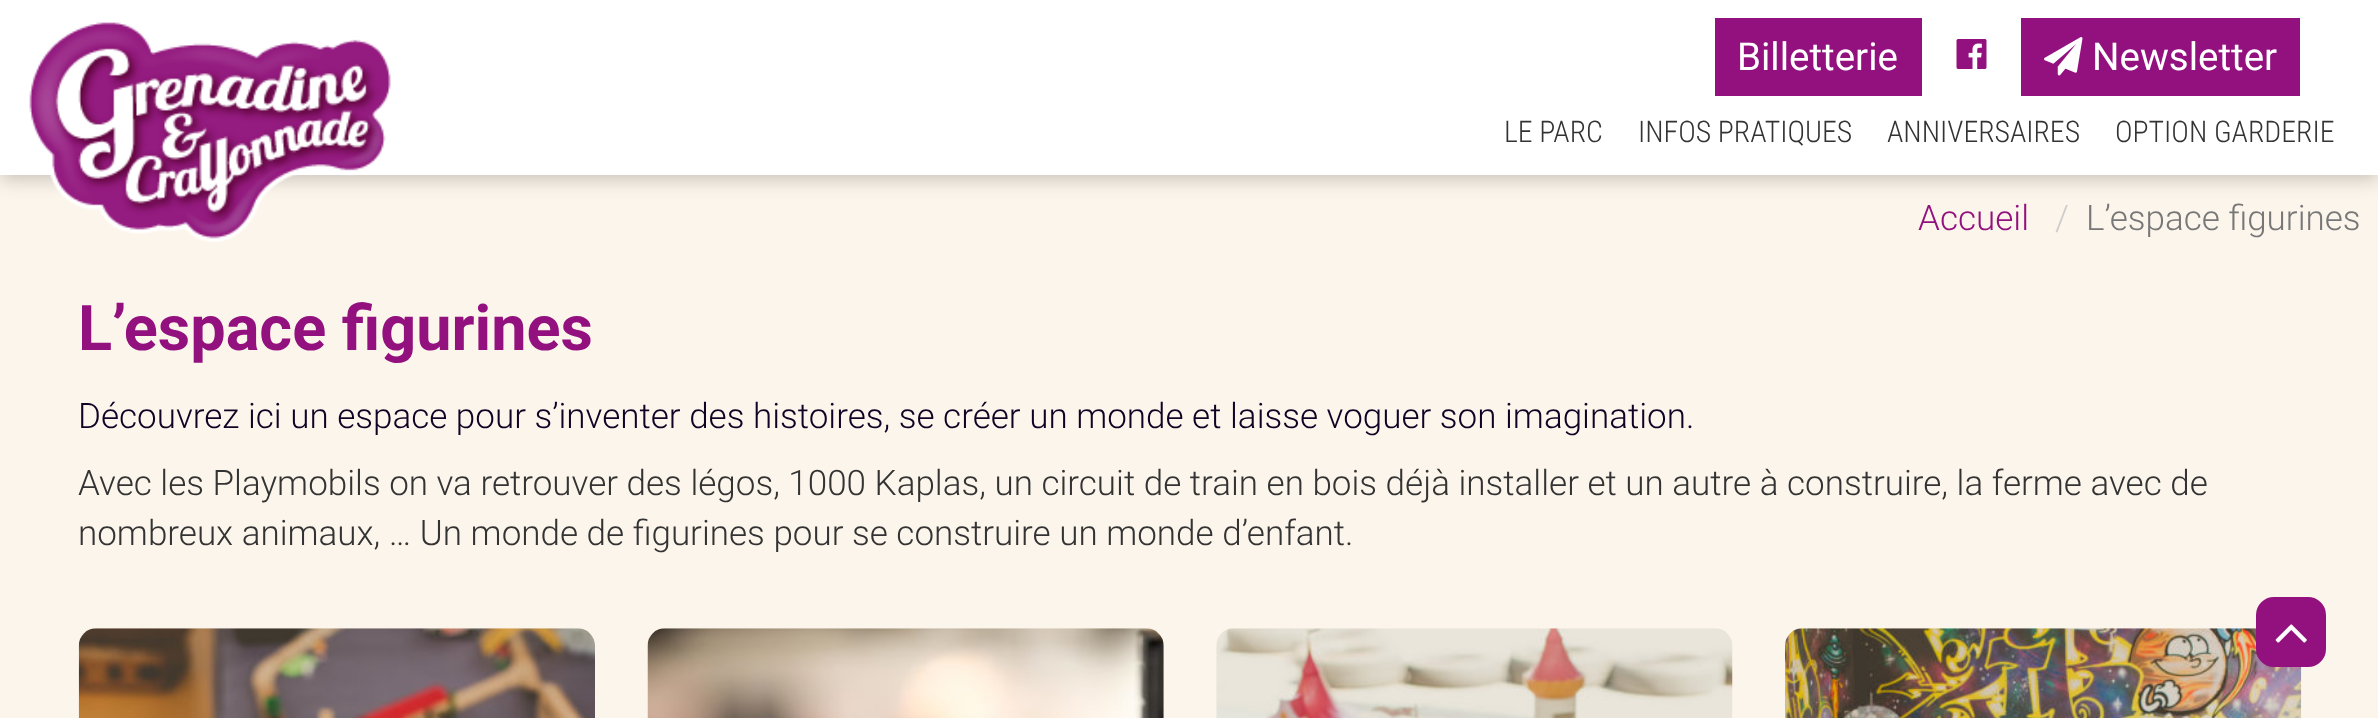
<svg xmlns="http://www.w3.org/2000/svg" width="2378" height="718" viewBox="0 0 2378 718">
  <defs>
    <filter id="blur1" x="-50%" y="-200%" width="200%" height="500%"><feGaussianBlur stdDeviation="9"/></filter>
  </defs>
  <rect width="100%" height="100%" fill="#fcf5eb"/>
  <rect x="0" y="5" width="2378" height="175" fill="#000000" fill-opacity="0.2" filter="url(#blur1)"/>
  <rect x="0" y="0" width="2378" height="175" fill="#ffffff"/>
  <image x="29" y="22" width="362" height="220" href="img1.png"/>
  <rect x="1715" y="18" width="207" height="78" fill="#93117e"/>
  <text x="1737" y="70" font-family="Roboto" font-size="38.5" fill="#ffffff">Billetterie</text>
  <image x="1956" y="39" width="31" height="30" href="img2.png"/>
  <rect x="2021" y="18" width="279" height="78" fill="#93117e"/>
  <image x="2044" y="37" width="39" height="39" href="img3.png"/>
  <text x="2092" y="70" font-family="Roboto" font-size="38.5" fill="#ffffff">Newsletter</text>
  <text x="1504" y="142" font-family="Roboto Condensed" font-size="29.75" font-weight="300" fill="#333333">LE PARC</text>
  <text x="1638" y="142" font-family="Roboto Condensed" font-size="29.75" font-weight="300" fill="#333333">INFOS PRATIQUES</text>
  <text x="1887" y="142" font-family="Roboto Condensed" font-size="29.75" font-weight="300" fill="#333333">ANNIVERSAIRES</text>
  <text x="2115" y="142" font-family="Roboto Condensed" font-size="29.75" font-weight="300" fill="#333333">OPTION GARDERIE</text>
  <text x="1918" y="230" font-family="Roboto" font-size="35" font-weight="300" fill="#93117e">Accueil</text>
  <text x="2055" y="230" font-family="Roboto" font-size="35" font-weight="300" fill="#cccccc">/</text>
  <text x="2086" y="230" font-family="Roboto" font-size="35" font-weight="300" fill="#777777">L’espace figurines</text>
  <text x="78" y="350" font-family="Roboto" font-size="63" font-weight="bold" fill="#93117e">L’espace figurines</text>
  <text x="78" y="428" font-family="Roboto" font-size="35" font-weight="300" fill="#110124">Découvrez ici un espace pour s’inventer des histoires, se créer un monde et laisse voguer son imagination.</text>
  <text x="78" y="495" font-family="Roboto" font-size="35" font-weight="300" fill="#333333">Avec les Playmobils on va retrouver des légos, 1000 Kaplas, un circuit de train en bois déjà installer et un autre à construire, la ferme avec de</text>
  <text x="78" y="545" font-family="Roboto" font-size="35" font-weight="300" fill="#333333">nombreux animaux, … Un monde de figurines pour se construire un monde d’enfant.</text>
  <image x="78" y="628" width="517" height="90" href="img4.png"/>
  <image x="647" y="628" width="517" height="90" href="img5.png"/>
  <image x="1216" y="628" width="517" height="90" href="img6.png"/>
  <image x="1785" y="628" width="517" height="90" href="img7.png"/>
  <rect x="2259.5" y="600.5" width="63" height="63" rx="14.5" fill="#93117e" stroke="#93117e" stroke-width="7"/>
  <image x="2275" y="624" width="32" height="19" href="img8.png"/>
</svg>
